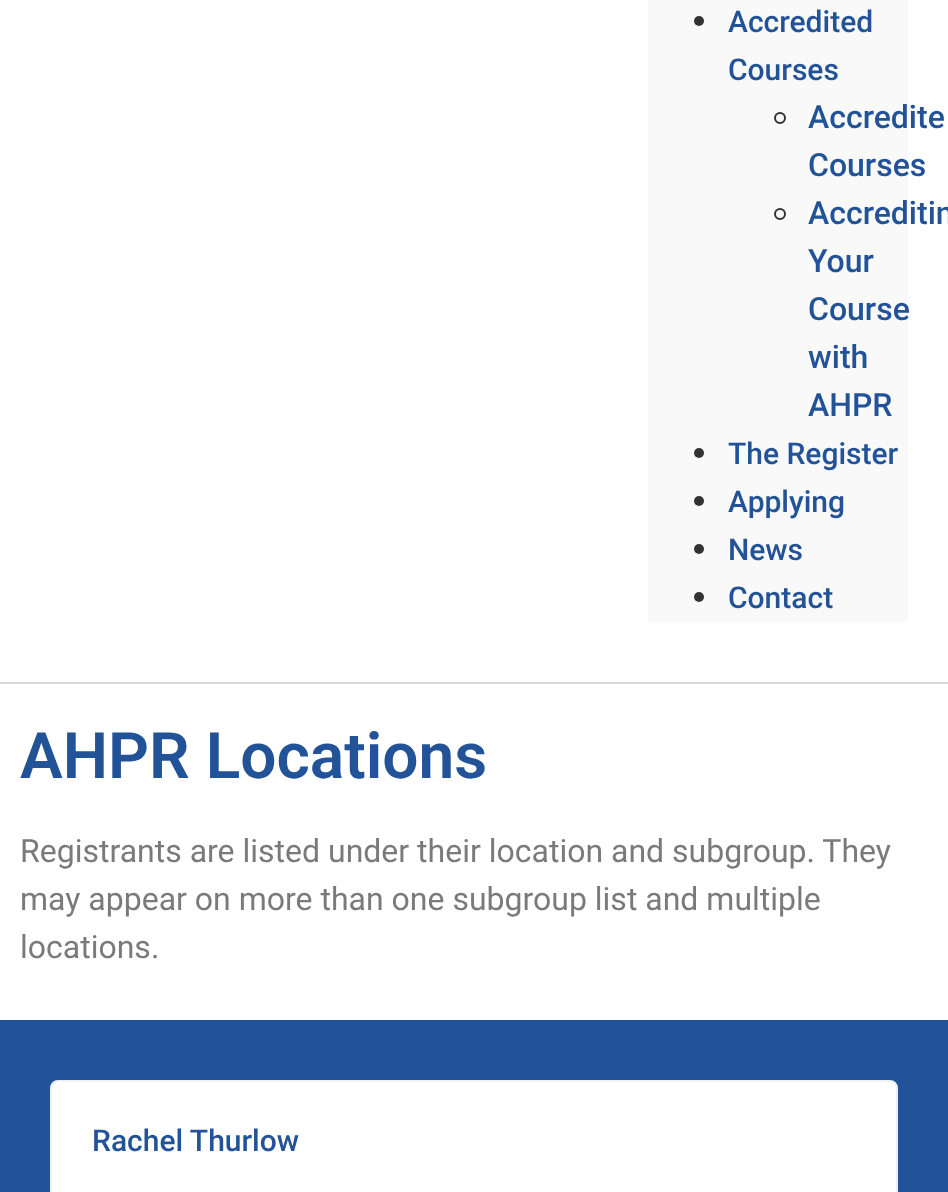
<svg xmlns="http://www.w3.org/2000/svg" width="948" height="1192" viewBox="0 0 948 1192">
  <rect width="100%" height="100%" fill="#ffffff"/>
  <rect x="0" y="682" width="948" height="2" fill="#d8d8d8"/>
  <rect x="648" y="0" width="260" height="622" fill="#f9f9f9"/>
  <circle cx="699" cy="21" r="5" fill="#333333"/>
  <text x="728" y="32" font-family="Roboto" font-size="30" font-weight="500" fill="#225297">Accredited</text>
  <text x="728" y="80" font-family="Roboto" font-size="30" font-weight="500" fill="#225297">Courses</text>
  <circle cx="780" cy="118" r="5" fill="none" stroke="#333333" stroke-width="2"/>
  <text x="808" y="128" font-family="Roboto" font-size="32" font-weight="500" fill="#225297">Accredite</text>
  <text x="808" y="176" font-family="Roboto" font-size="32" font-weight="500" fill="#225297">Courses</text>
  <circle cx="780" cy="214" r="5" fill="none" stroke="#333333" stroke-width="2"/>
  <text x="808" y="224" font-family="Roboto" font-size="32" font-weight="500" fill="#225297">Accreditin</text>
  <text x="808" y="272" font-family="Roboto" font-size="32" font-weight="500" fill="#225297">Your</text>
  <text x="808" y="320" font-family="Roboto" font-size="32" font-weight="500" fill="#225297">Course</text>
  <text x="808" y="368" font-family="Roboto" font-size="32" font-weight="500" fill="#225297">with</text>
  <text x="808" y="416" font-family="Roboto" font-size="32" font-weight="500" fill="#225297">AHPR</text>
  <circle cx="699" cy="453" r="5" fill="#333333"/>
  <text x="728" y="464" font-family="Roboto" font-size="30" font-weight="500" fill="#225297">The Register</text>
  <circle cx="699" cy="501" r="5" fill="#333333"/>
  <text x="728" y="512" font-family="Roboto" font-size="30" font-weight="500" fill="#225297">Applying</text>
  <circle cx="699" cy="549" r="5" fill="#333333"/>
  <text x="728" y="560" font-family="Roboto" font-size="30" font-weight="500" fill="#225297">News</text>
  <circle cx="699" cy="597" r="5" fill="#333333"/>
  <text x="728" y="608" font-family="Roboto" font-size="30" font-weight="500" fill="#225297">Contact</text>
  <text x="20" y="778" font-family="Roboto" font-size="64" font-weight="600" fill="#225297">AHPR Locations</text>
  <text x="20" y="862" font-family="Roboto" font-size="32" fill="#7a7a7a">Registrants are listed under their location and subgroup. They</text>
  <text x="20" y="910" font-family="Roboto" font-size="32" fill="#7a7a7a">may appear on more than one subgroup list and multiple</text>
  <text x="20" y="958" font-family="Roboto" font-size="32" fill="#7a7a7a">locations.</text>
  <rect x="0" y="1020" width="948" height="172" fill="#225297"/>
  <rect x="51" y="1081" width="846" height="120" rx="7" fill="#ffffff" stroke="#eff1f6" stroke-width="2"/>
  <text x="92" y="1151" font-family="Roboto" font-size="30" font-weight="500" fill="#225297">Rachel Thurlow</text>
</svg>
